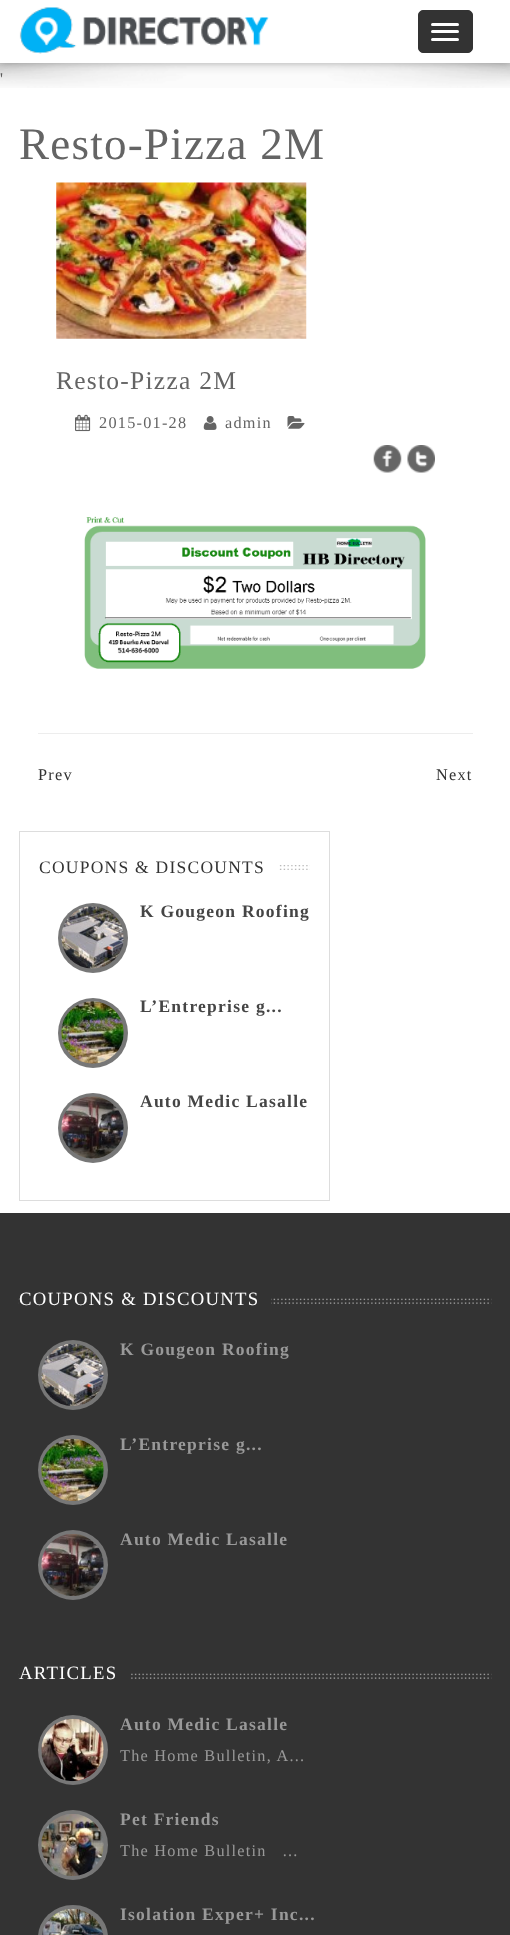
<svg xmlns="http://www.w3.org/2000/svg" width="510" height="1935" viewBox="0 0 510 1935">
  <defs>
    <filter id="blur1" x="-50%" y="-200%" width="200%" height="500%"><feGaussianBlur stdDeviation="4"/></filter>
  </defs>
  <rect width="100%" height="100%" fill="#ffffff"/>
  <text x="0" y="84" font-family="Liberation Serif" font-size="16.25" letter-spacing="1.25" fill="#646464">'</text>
  <image x="0" y="63" width="510" height="25" href="img2.png"/>
  <rect x="0" y="0" width="510" height="63" fill="#000000" fill-opacity="0.3" filter="url(#blur1)"/>
  <rect x="0" y="0" width="510" height="63" fill="#ffffff"/>
  <image x="19" y="7" width="250" height="47" href="img1.png"/>
  <rect x="418.5" y="10.5" width="54" height="42" rx="4.5" fill="#333333" stroke="#333333"/>
  <rect x="431" y="23" width="28" height="3" rx="1.5" fill="#ffffff"/>
  <rect x="431" y="30" width="28" height="3" rx="1.5" fill="#ffffff"/>
  <rect x="431" y="38" width="28" height="3" rx="1.5" fill="#ffffff"/>
  <text x="19" y="159" font-family="Liberation Serif" font-size="45" letter-spacing="1.25" fill="#646464">Resto-Pizza 2M</text>
  <rect x="38" y="733" width="435" height="1" fill="#ededed"/>
  <image x="56" y="182" width="251" height="157" href="img3.png"/>
  <text x="56" y="389" font-family="Liberation Serif" font-size="25.5" letter-spacing="1.25" fill="#646464">Resto-Pizza 2M</text>
  <image x="75" y="414" width="16" height="18" href="img4.png"/>
  <text x="99" y="428" font-family="Liberation Serif" font-size="16.25" letter-spacing="1.25" fill="#646464">2015-01-28</text>
  <image x="203" y="416" width="14" height="14" href="img5.png"/>
  <text x="225" y="428" font-family="Liberation Serif" font-size="16.25" letter-spacing="1.25" fill="#646464">admin</text>
  <image x="287" y="416" width="18" height="13" href="img6.png"/>
  <image x="373" y="445" width="29" height="28" href="img7.png"/>
  <image x="407" y="445" width="28" height="28" href="img8.png"/>
  <image x="84" y="516" width="342" height="153" href="img9.png"/>
  <text x="38" y="780" font-family="Liberation Serif" font-size="16.25" letter-spacing="1.25" fill="#333333">Prev</text>
  <text x="436" y="780" font-family="Liberation Serif" font-size="16.25" letter-spacing="1.25" fill="#333333">Next</text>
  <rect x="19.5" y="831.5" width="310" height="369" fill="none" stroke="#dddddd"/>
  <image x="279" y="865" width="31" height="5" href="img10.png"/>
  <text x="39" y="873" font-family="Liberation Serif" font-size="17.5" letter-spacing="1.25" fill="#333333">COUPONS &amp; DISCOUNTS</text>
  <circle cx="93" cy="938" r="35" fill="#777777"/>
  <image x="61" y="906" width="63" height="63" href="img11.png"/>
  <text x="140" y="917" font-family="Liberation Serif" font-size="17.5" font-weight="bold" letter-spacing="1.25" fill="#454545">K Gougeon Roofing</text>
  <circle cx="93" cy="1033" r="35" fill="#777777"/>
  <image x="61" y="1001" width="63" height="63" href="img12.png"/>
  <text x="140" y="1012" font-family="Liberation Serif" font-size="17.5" font-weight="bold" letter-spacing="1.25" fill="#454545">L’Entreprise g...</text>
  <circle cx="93" cy="1128" r="35" fill="#777777"/>
  <image x="61" y="1096" width="63" height="63" href="img13.png"/>
  <text x="140" y="1107" font-family="Liberation Serif" font-size="17.5" font-weight="bold" letter-spacing="1.25" fill="#454545">Auto Medic Lasalle</text>
  <rect x="0" y="1213" width="510" height="722" fill="#333333"/>
  <image x="18" y="1298" width="474" height="6" href="img14.png"/>
  <rect x="19" y="1298" width="252" height="6" fill="#333333"/>
  <text x="19" y="1305" font-family="Liberation Serif" font-size="18.75" letter-spacing="1.25" fill="#ffffff">COUPONS &amp; DISCOUNTS</text>
  <circle cx="73" cy="1375" r="35" fill="#777777"/>
  <image x="41" y="1344" width="63" height="62" href="img15.png"/>
  <text x="120" y="1355" font-family="Liberation Serif" font-size="17.5" font-weight="bold" letter-spacing="1.25" fill="#999999">K Gougeon Roofing</text>
  <circle cx="73" cy="1470" r="35" fill="#777777"/>
  <image x="41" y="1438" width="63" height="63" href="img16.png"/>
  <text x="120" y="1450" font-family="Liberation Serif" font-size="17.5" font-weight="bold" letter-spacing="1.25" fill="#999999">L’Entreprise g...</text>
  <circle cx="73" cy="1565" r="35" fill="#777777"/>
  <image x="41" y="1534" width="63" height="62" href="img17.png"/>
  <text x="120" y="1545" font-family="Liberation Serif" font-size="17.5" font-weight="bold" letter-spacing="1.25" fill="#999999">Auto Medic Lasalle</text>
  <image x="18" y="1673" width="474" height="6" href="img18.png"/>
  <rect x="19" y="1673" width="110" height="6" fill="#333333"/>
  <text x="19" y="1679" font-family="Liberation Serif" font-size="18.75" letter-spacing="1.25" fill="#ffffff">ARTICLES</text>
  <circle cx="73" cy="1750" r="35" fill="#777777"/>
  <image x="41" y="1718" width="63" height="64" href="img19.png"/>
  <text x="120" y="1730" font-family="Liberation Serif" font-size="17.5" font-weight="bold" letter-spacing="1.25" fill="#999999">Auto Medic Lasalle</text>
  <text x="120" y="1761" font-family="Liberation Serif" font-size="16.25" letter-spacing="1.25" fill="#999999">The Home Bulletin, A...</text>
  <circle cx="73" cy="1845" r="35" fill="#777777"/>
  <image x="41" y="1814" width="63" height="62" href="img20.png"/>
  <text x="120" y="1825" font-family="Liberation Serif" font-size="17.5" font-weight="bold" letter-spacing="1.25" fill="#999999">Pet Friends</text>
  <text x="120" y="1856" font-family="Liberation Serif" font-size="16.25" letter-spacing="1.25" fill="#999999" xml:space="preserve">The Home Bulletin   ...</text>
  <rect x="38" y="1905" width="70" height="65" rx="35" fill="#777777"/>
  <image x="42" y="1908" width="62" height="27" href="img21.png"/>
  <text x="120" y="1920" font-family="Liberation Serif" font-size="17.5" font-weight="bold" letter-spacing="1.25" fill="#999999">Isolation Exper+ Inc...</text>
</svg>
